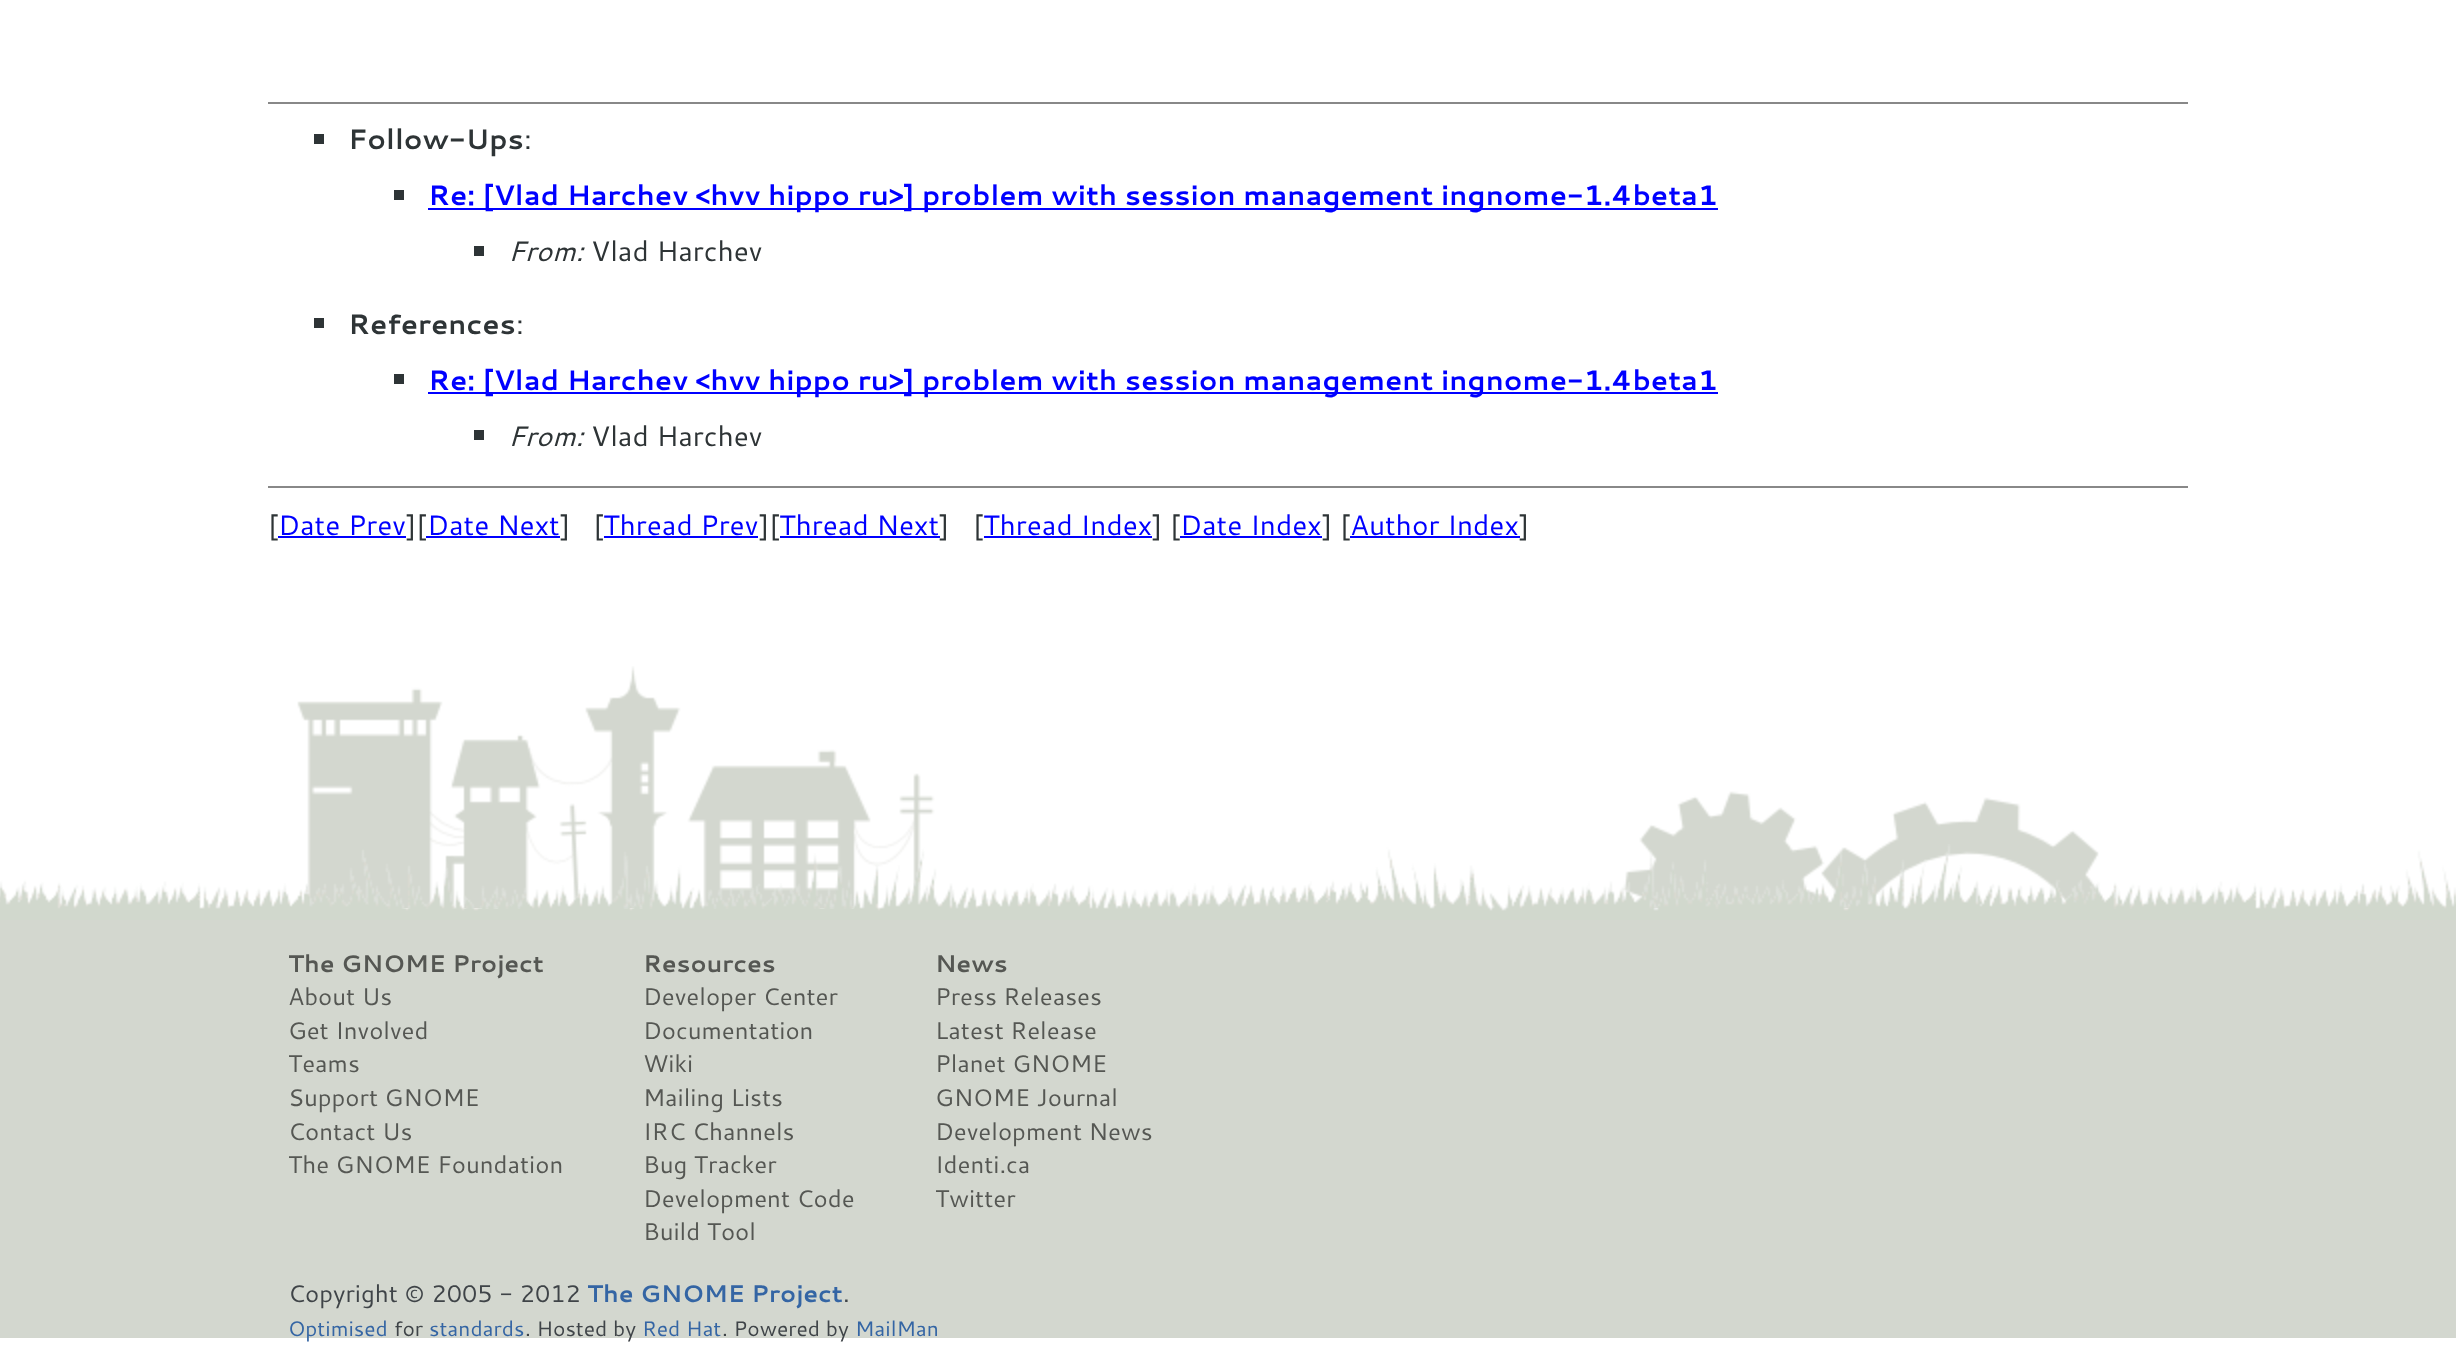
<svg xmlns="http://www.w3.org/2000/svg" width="2456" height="1345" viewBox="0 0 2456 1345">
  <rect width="100%" height="100%" fill="#ffffff"/>
  <rect x="268" y="102" width="1920" height="2" fill="#888888"/>
  <rect x="314" y="134" width="10" height="10" fill="#2e3436"/>
  <text x="348" y="149" font-family="Cantarell" font-size="28" font-weight="bold" fill="#2e3436">Follow-Ups</text>
  <text x="524" y="149" font-family="Cantarell" font-size="28" fill="#2e3436">:</text>
  <rect x="394" y="190" width="10" height="10" fill="#2e3436"/>
  <rect x="428" y="208" width="1290" height="2" fill="#0000ff"/>
  <text x="428" y="205" font-family="Cantarell" font-size="28" font-weight="bold" fill="#0000ff">Re: [Vlad Harchev &lt;hvv hippo ru&gt;] problem with session management ingnome-1.4beta1</text>
  <rect x="474" y="246" width="10" height="10" fill="#2e3436"/>
  <text x="508" y="261" font-family="Cantarell" font-size="28" font-style="italic" fill="#2e3436">From:</text>
  <text x="591" y="261" font-family="Cantarell" font-size="28" fill="#2e3436">Vlad Harchev</text>
  <rect x="314" y="318" width="10" height="10" fill="#2e3436"/>
  <text x="348" y="334" font-family="Cantarell" font-size="28" font-weight="bold" fill="#2e3436">References</text>
  <text x="516" y="334" font-family="Cantarell" font-size="28" fill="#2e3436">:</text>
  <rect x="394" y="374" width="10" height="10" fill="#2e3436"/>
  <rect x="428" y="392" width="1290" height="2" fill="#0000ff"/>
  <text x="428" y="390" font-family="Cantarell" font-size="28" font-weight="bold" fill="#0000ff">Re: [Vlad Harchev &lt;hvv hippo ru&gt;] problem with session management ingnome-1.4beta1</text>
  <rect x="474" y="430" width="10" height="10" fill="#2e3436"/>
  <text x="508" y="446" font-family="Cantarell" font-size="28" font-style="italic" fill="#2e3436">From:</text>
  <text x="591" y="446" font-family="Cantarell" font-size="28" fill="#2e3436">Vlad Harchev</text>
  <rect x="268" y="486" width="1920" height="2" fill="#888888"/>
  <text x="268" y="535" font-family="Cantarell" font-size="28" fill="#2e3436">[</text>
  <text x="278" y="535" font-family="Cantarell" font-size="28" fill="#0000ff">Date Prev</text>
  <rect x="278" y="536" width="128" height="2" fill="#0000ff"/>
  <text x="406" y="535" font-family="Cantarell" font-size="28" fill="#2e3436">][</text>
  <text x="427" y="535" font-family="Cantarell" font-size="28" fill="#0000ff">Date Next</text>
  <rect x="426" y="536" width="134" height="2" fill="#0000ff"/>
  <text x="560" y="535" font-family="Cantarell" font-size="28" fill="#2e3436" xml:space="preserve">]   [</text>
  <text x="603" y="535" font-family="Cantarell" font-size="28" fill="#0000ff">Thread Prev</text>
  <rect x="604" y="536" width="154" height="2" fill="#0000ff"/>
  <text x="759" y="535" font-family="Cantarell" font-size="28" fill="#2e3436">][</text>
  <text x="779" y="535" font-family="Cantarell" font-size="28" fill="#0000ff">Thread Next</text>
  <rect x="780" y="536" width="160" height="2" fill="#0000ff"/>
  <text x="939" y="535" font-family="Cantarell" font-size="28" fill="#2e3436">]</text>
  <text x="973" y="535" font-family="Cantarell" font-size="28" fill="#2e3436">[</text>
  <text x="983" y="535" font-family="Cantarell" font-size="28" fill="#0000ff">Thread Index</text>
  <rect x="984" y="536" width="168" height="2" fill="#0000ff"/>
  <text x="1152" y="535" font-family="Cantarell" font-size="28" fill="#2e3436">] [</text>
  <text x="1180" y="535" font-family="Cantarell" font-size="28" fill="#0000ff">Date Index</text>
  <rect x="1180" y="536" width="142" height="2" fill="#0000ff"/>
  <text x="1322" y="535" font-family="Cantarell" font-size="28" fill="#2e3436">] [</text>
  <text x="1350" y="535" font-family="Cantarell" font-size="28" fill="#0000ff">Author Index</text>
  <rect x="1350" y="536" width="170" height="2" fill="#0000ff"/>
  <text x="1519" y="535" font-family="Cantarell" font-size="28" fill="#2e3436">]</text>
  <image x="297" y="666" width="1838" height="242" href="img1.png"/>
  <image x="0" y="844" width="2456" height="76" href="img2.png"/>
  <rect x="0" y="920" width="2456" height="418" fill="#d3d7cf"/>
  <text x="288" y="972" font-family="Cantarell" font-size="24" font-weight="bold" fill="#555753">The GNOME Project</text>
  <text x="288" y="1005" font-family="Cantarell" font-size="24" fill="#555753">About Us</text>
  <text x="288" y="1039" font-family="Cantarell" font-size="24" fill="#555753">Get Involved</text>
  <text x="288" y="1072" font-family="Cantarell" font-size="24" fill="#555753">Teams</text>
  <text x="288" y="1106" font-family="Cantarell" font-size="24" fill="#555753">Support GNOME</text>
  <text x="288" y="1140" font-family="Cantarell" font-size="24" fill="#555753">Contact Us</text>
  <text x="288" y="1173" font-family="Cantarell" font-size="24" fill="#555753">The GNOME Foundation</text>
  <text x="643" y="972" font-family="Cantarell" font-size="24" font-weight="bold" fill="#555753">Resources</text>
  <text x="643" y="1005" font-family="Cantarell" font-size="24" fill="#555753">Developer Center</text>
  <text x="643" y="1039" font-family="Cantarell" font-size="24" fill="#555753">Documentation</text>
  <text x="643" y="1072" font-family="Cantarell" font-size="24" fill="#555753">Wiki</text>
  <text x="643" y="1106" font-family="Cantarell" font-size="24" fill="#555753">Mailing Lists</text>
  <text x="643" y="1140" font-family="Cantarell" font-size="24" fill="#555753">IRC Channels</text>
  <text x="643" y="1173" font-family="Cantarell" font-size="24" fill="#555753">Bug Tracker</text>
  <text x="643" y="1207" font-family="Cantarell" font-size="24" fill="#555753">Development Code</text>
  <text x="643" y="1240" font-family="Cantarell" font-size="24" fill="#555753">Build Tool</text>
  <text x="935" y="972" font-family="Cantarell" font-size="24" font-weight="bold" fill="#555753">News</text>
  <text x="935" y="1005" font-family="Cantarell" font-size="24" fill="#555753">Press Releases</text>
  <text x="935" y="1039" font-family="Cantarell" font-size="24" fill="#555753">Latest Release</text>
  <text x="935" y="1072" font-family="Cantarell" font-size="24" fill="#555753">Planet GNOME</text>
  <text x="935" y="1106" font-family="Cantarell" font-size="24" fill="#555753">GNOME Journal</text>
  <text x="935" y="1140" font-family="Cantarell" font-size="24" fill="#555753">Development News</text>
  <text x="935" y="1173" font-family="Cantarell" font-size="24" fill="#555753">Identi.ca</text>
  <text x="935" y="1207" font-family="Cantarell" font-size="24" fill="#555753">Twitter</text>
  <text x="288" y="1302" font-family="Cantarell" font-size="24" fill="#3f4448">Copyright © 2005 - 2012</text>
  <text x="587" y="1302" font-family="Cantarell" font-size="24" font-weight="bold" fill="#3465a4">The GNOME Project</text>
  <text x="843" y="1302" font-family="Cantarell" font-size="24" fill="#3f4448">.</text>
  <text x="288" y="1336" font-family="Cantarell" font-size="21" fill="#3465a4">Optimised</text>
  <text x="394" y="1336" font-family="Cantarell" font-size="21" fill="#3f4448">for</text>
  <text x="429" y="1336" font-family="Cantarell" font-size="21" fill="#3465a4">standards</text>
  <text x="525" y="1336" font-family="Cantarell" font-size="21" fill="#3f4448">. Hosted by</text>
  <text x="642" y="1336" font-family="Cantarell" font-size="21" fill="#3465a4">Red Hat</text>
  <text x="722" y="1336" font-family="Cantarell" font-size="21" fill="#3f4448">. Powered by</text>
  <text x="855" y="1336" font-family="Cantarell" font-size="21" fill="#3465a4">MailMan</text>
</svg>
